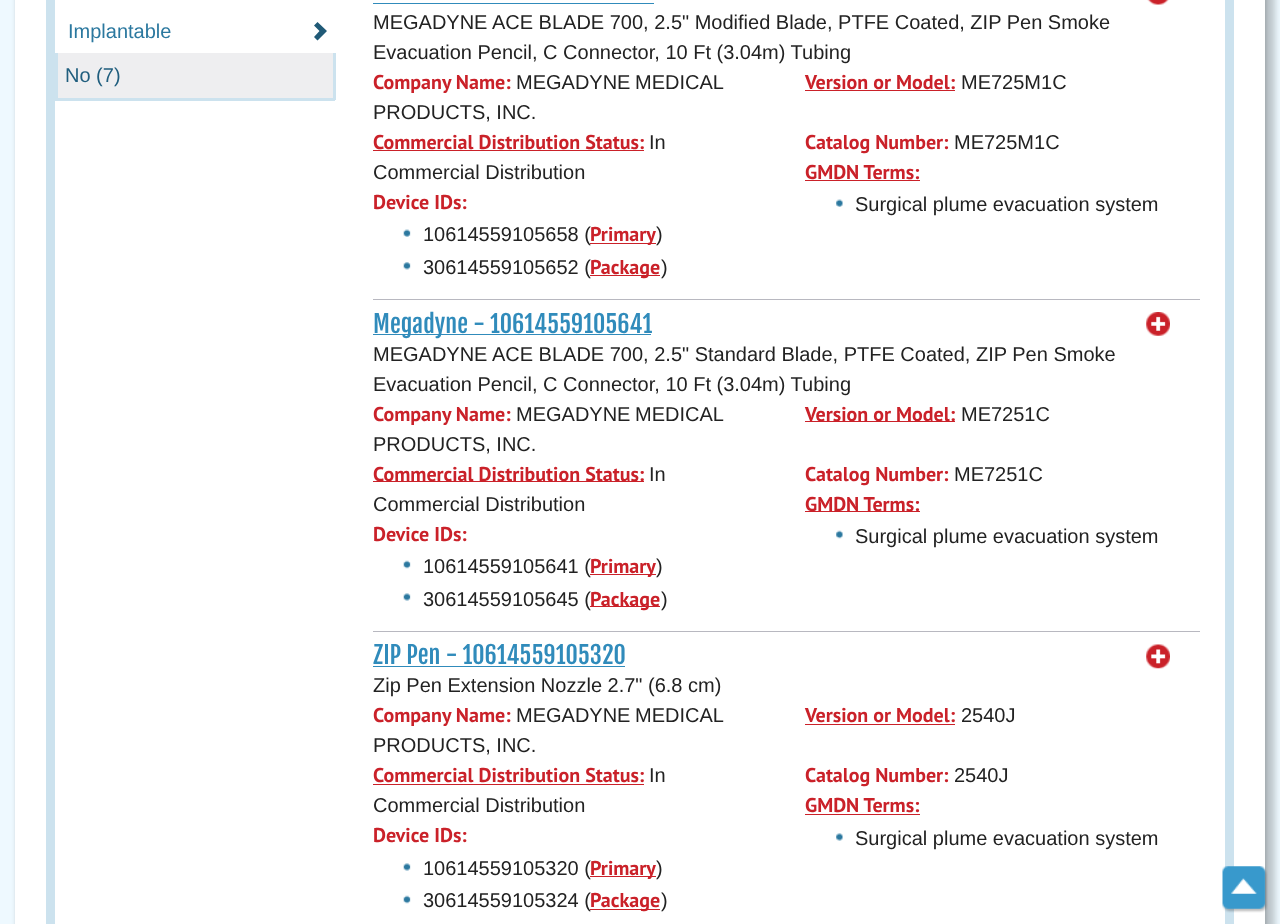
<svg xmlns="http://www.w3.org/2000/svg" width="1280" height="924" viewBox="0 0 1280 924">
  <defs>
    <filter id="blur1" x="-50%" y="-200%" width="200%" height="500%"><feGaussianBlur stdDeviation="2"/></filter>
    <filter id="blur2" x="-50%" y="-200%" width="200%" height="500%"><feGaussianBlur stdDeviation="3"/></filter>
  </defs>
  <rect width="100%" height="100%" fill="#eef9ff"/>
  <rect x="16" y="-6" width="1250" height="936" fill="#000000" fill-opacity="0.2" filter="url(#blur1)"/>
  <rect x="25" y="-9" width="1250" height="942" fill="#000000" fill-opacity="0.2" filter="url(#blur2)"/>
  <rect x="15" y="0" width="1250" height="924" fill="#ffffff"/>
  <rect x="50.5" y="-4.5" width="1179" height="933" fill="none" stroke="#cce2ee" stroke-width="9"/>
  <path d="M317.5 22L314 25.5L319.5 31L314 37L317.5 40.5L327 31Z" fill="#205a77"/>
  <text x="68" y="38" font-family="Liberation Sans" font-size="20" fill="#2b789f">Implantable</text>
  <rect x="58" y="53" width="275" height="45" fill="#eeeef0"/>
  <rect x="333" y="53" width="3" height="47" fill="#cce2ee"/>
  <rect x="55" y="98" width="280" height="3" fill="#cce2ee"/>
  <rect x="55" y="53" width="3" height="47" fill="#cce2ee"/>
  <text x="65" y="82" font-family="Liberation Sans" font-size="20" fill="#205e7e">No (7)</text>
  <rect x="373" y="299" width="827" height="1" fill="#b8b8c0"/>
  <rect x="373" y="3" width="281" height="1" fill="#308bbb"/>
  <image x="1147" y="0" width="22" height="5" href="img1.png"/>
  <text x="373" y="29" font-family="Liberation Sans" font-size="20" fill="#222222">MEGADYNE ACE BLADE 700, 2.5" Modified Blade, PTFE Coated, ZIP Pen Smoke</text>
  <text x="373" y="59" font-family="Liberation Sans" font-size="20" fill="#222222">Evacuation Pencil, C Connector, 10 Ft (3.04m) Tubing</text>
  <text x="373" y="89" font-family="PT Sans" font-size="20" font-weight="bold" fill="#ca2129">Company Name:</text>
  <text x="516" y="89" word-spacing="-1" font-family="Liberation Sans" font-size="20" fill="#222222">MEGADYNE MEDICAL</text>
  <text x="373" y="119" font-family="Liberation Sans" font-size="20" fill="#222222">PRODUCTS, INC.</text>
  <text x="805" y="89" font-family="PT Sans" font-size="20" font-weight="bold" fill="#ca2129">Version or Model:</text>
  <rect x="805" y="90" width="150" height="1" fill="#ca2129"/>
  <text x="961" y="89" font-family="Liberation Sans" font-size="20" fill="#222222">ME725M1C</text>
  <text x="373" y="149" font-family="PT Sans" font-size="20" font-weight="bold" fill="#ca2129">Commercial Distribution Status:</text>
  <rect x="373" y="150" width="271" height="1" fill="#ca2129"/>
  <text x="649" y="149" font-family="Liberation Sans" font-size="20" fill="#222222">In</text>
  <text x="373" y="179" font-family="Liberation Sans" font-size="20" fill="#222222">Commercial Distribution</text>
  <text x="373" y="209" font-family="PT Sans" font-size="20" font-weight="bold" fill="#ca2129">Device IDs:</text>
  <image x="403" y="229" width="8" height="8" href="img2.png"/>
  <text x="423" y="241" font-family="Liberation Sans" font-size="20" fill="#222222">10614559105658 (</text>
  <rect x="590" y="243" width="66" height="1" fill="#ca2129"/>
  <text x="590" y="241" font-family="PT Sans" font-size="20" font-weight="bold" fill="#ca2129">Primary</text>
  <text x="656" y="241" font-family="Liberation Sans" font-size="20" fill="#222222">)</text>
  <image x="403" y="262" width="8" height="8" href="img3.png"/>
  <text x="423" y="274" font-family="Liberation Sans" font-size="20" fill="#222222">30614559105652 (</text>
  <rect x="590" y="275" width="70" height="1" fill="#ca2129"/>
  <text x="590" y="274" font-family="PT Sans" font-size="20" font-weight="bold" fill="#ca2129">Package</text>
  <text x="661" y="274" font-family="Liberation Sans" font-size="20" fill="#222222">)</text>
  <text x="805" y="149" font-family="PT Sans" font-size="20" font-weight="bold" fill="#ca2129">Catalog Number:</text>
  <text x="954" y="149" font-family="Liberation Sans" font-size="20" fill="#222222">ME725M1C</text>
  <text x="805" y="179" font-family="PT Sans" font-size="20" font-weight="bold" fill="#ca2129">GMDN Terms:</text>
  <rect x="805" y="180" width="115" height="1" fill="#ca2129"/>
  <image x="836" y="199" width="7" height="8" href="img4.png"/>
  <text x="855" y="211" font-family="Liberation Sans" font-size="20" fill="#222222">Surgical plume evacuation system</text>
  <rect x="373" y="631" width="827" height="1" fill="#b8b8c0"/>
  <rect x="373" y="334" width="278" height="1" fill="#308bbb"/>
  <text x="373" y="333" font-family="Fjalla One" font-size="24" fill="#308bbb">Megadyne - 10614559105641</text>
  <image x="1146" y="312" width="24" height="24" href="img5.png"/>
  <text x="373" y="361" font-family="Liberation Sans" font-size="20" fill="#222222">MEGADYNE ACE BLADE 700, 2.5" Standard Blade, PTFE Coated, ZIP Pen Smoke</text>
  <text x="373" y="391" font-family="Liberation Sans" font-size="20" fill="#222222">Evacuation Pencil, C Connector, 10 Ft (3.04m) Tubing</text>
  <text x="373" y="421" font-family="PT Sans" font-size="20" font-weight="bold" fill="#ca2129">Company Name:</text>
  <text x="516" y="421" word-spacing="-1" font-family="Liberation Sans" font-size="20" fill="#222222">MEGADYNE MEDICAL</text>
  <text x="373" y="451" font-family="Liberation Sans" font-size="20" fill="#222222">PRODUCTS, INC.</text>
  <rect x="805" y="421" width="150" height="1" fill="#ca2129"/>
  <text x="805" y="421" font-family="PT Sans" font-size="20" font-weight="bold" fill="#ca2129">Version or Model:</text>
  <text x="961" y="421" font-family="Liberation Sans" font-size="20" fill="#222222">ME7251C</text>
  <rect x="373" y="481" width="271" height="1" fill="#ca2129"/>
  <text x="373" y="481" font-family="PT Sans" font-size="20" font-weight="bold" fill="#ca2129">Commercial Distribution Status:</text>
  <text x="649" y="481" font-family="Liberation Sans" font-size="20" fill="#222222">In</text>
  <text x="373" y="511" font-family="Liberation Sans" font-size="20" fill="#222222">Commercial Distribution</text>
  <text x="373" y="541" font-family="PT Sans" font-size="20" font-weight="bold" fill="#ca2129">Device IDs:</text>
  <image x="403" y="560" width="8" height="9" href="img6.png"/>
  <text x="423" y="573" font-family="Liberation Sans" font-size="20" fill="#222222">10614559105641 (</text>
  <rect x="590" y="574" width="66" height="1" fill="#ca2129"/>
  <text x="590" y="573" font-family="PT Sans" font-size="20" font-weight="bold" fill="#ca2129">Primary</text>
  <text x="656" y="573" font-family="Liberation Sans" font-size="20" fill="#222222">)</text>
  <image x="403" y="593" width="8" height="8" href="img7.png"/>
  <text x="423" y="606" font-family="Liberation Sans" font-size="20" fill="#222222">30614559105645 (</text>
  <rect x="590" y="606" width="70" height="1" fill="#ca2129"/>
  <text x="590" y="606" font-family="PT Sans" font-size="20" font-weight="bold" fill="#ca2129">Package</text>
  <text x="661" y="606" font-family="Liberation Sans" font-size="20" fill="#222222">)</text>
  <text x="805" y="481" font-family="PT Sans" font-size="20" font-weight="bold" fill="#ca2129">Catalog Number:</text>
  <text x="954" y="481" font-family="Liberation Sans" font-size="20" fill="#222222">ME7251C</text>
  <rect x="805" y="511" width="115" height="1" fill="#ca2129"/>
  <text x="805" y="511" font-family="PT Sans" font-size="20" font-weight="bold" fill="#ca2129">GMDN Terms:</text>
  <image x="836" y="530" width="7" height="9" href="img8.png"/>
  <text x="855" y="543" font-family="Liberation Sans" font-size="20" fill="#222222">Surgical plume evacuation system</text>
  <text x="373" y="664" font-family="Fjalla One" font-size="24" fill="#308bbb">ZIP Pen - 10614559105320</text>
  <rect x="373" y="666" width="252" height="1" fill="#308bbb"/>
  <image x="1146" y="644" width="24" height="25" href="img9.png"/>
  <text x="373" y="692" font-family="Liberation Sans" font-size="20" fill="#222222">Zip Pen Extension Nozzle 2.7" (6.8 cm)</text>
  <text x="373" y="722" font-family="PT Sans" font-size="20" font-weight="bold" fill="#ca2129">Company Name:</text>
  <text x="516" y="722" word-spacing="-1" font-family="Liberation Sans" font-size="20" fill="#222222">MEGADYNE MEDICAL</text>
  <text x="373" y="752" font-family="Liberation Sans" font-size="20" fill="#222222">PRODUCTS, INC.</text>
  <text x="805" y="722" font-family="PT Sans" font-size="20" font-weight="bold" fill="#ca2129">Version or Model:</text>
  <rect x="805" y="724" width="150" height="1" fill="#ca2129"/>
  <text x="961" y="722" font-family="Liberation Sans" font-size="20" fill="#222222">2540J</text>
  <text x="373" y="782" font-family="PT Sans" font-size="20" font-weight="bold" fill="#ca2129">Commercial Distribution Status:</text>
  <rect x="373" y="784" width="271" height="1" fill="#ca2129"/>
  <text x="649" y="782" font-family="Liberation Sans" font-size="20" fill="#222222">In</text>
  <text x="373" y="812" font-family="Liberation Sans" font-size="20" fill="#222222">Commercial Distribution</text>
  <text x="373" y="842" font-family="PT Sans" font-size="20" font-weight="bold" fill="#ca2129">Device IDs:</text>
  <image x="403" y="863" width="8" height="8" href="img7.png"/>
  <text x="423" y="875" font-family="Liberation Sans" font-size="20" fill="#222222">10614559105320 (</text>
  <rect x="590" y="876" width="66" height="1" fill="#ca2129"/>
  <text x="590" y="875" font-family="PT Sans" font-size="20" font-weight="bold" fill="#ca2129">Primary</text>
  <text x="656" y="875" font-family="Liberation Sans" font-size="20" fill="#222222">)</text>
  <image x="403" y="895" width="8" height="9" href="img6.png"/>
  <text x="423" y="907" font-family="Liberation Sans" font-size="20" fill="#222222">30614559105324 (</text>
  <rect x="590" y="909" width="70" height="1" fill="#ca2129"/>
  <text x="590" y="907" font-family="PT Sans" font-size="20" font-weight="bold" fill="#ca2129">Package</text>
  <text x="661" y="907" font-family="Liberation Sans" font-size="20" fill="#222222">)</text>
  <text x="805" y="782" font-family="PT Sans" font-size="20" font-weight="bold" fill="#ca2129">Catalog Number:</text>
  <text x="954" y="782" font-family="Liberation Sans" font-size="20" fill="#222222">2540J</text>
  <text x="805" y="812" font-family="PT Sans" font-size="20" font-weight="bold" fill="#ca2129">GMDN Terms:</text>
  <rect x="805" y="814" width="115" height="1" fill="#ca2129"/>
  <image x="836" y="833" width="7" height="8" href="img10.png"/>
  <text x="855" y="845" font-family="Liberation Sans" font-size="20" fill="#222222">Surgical plume evacuation system</text>
  <image x="1222" y="866" width="46" height="47" href="img11.png"/>
</svg>
